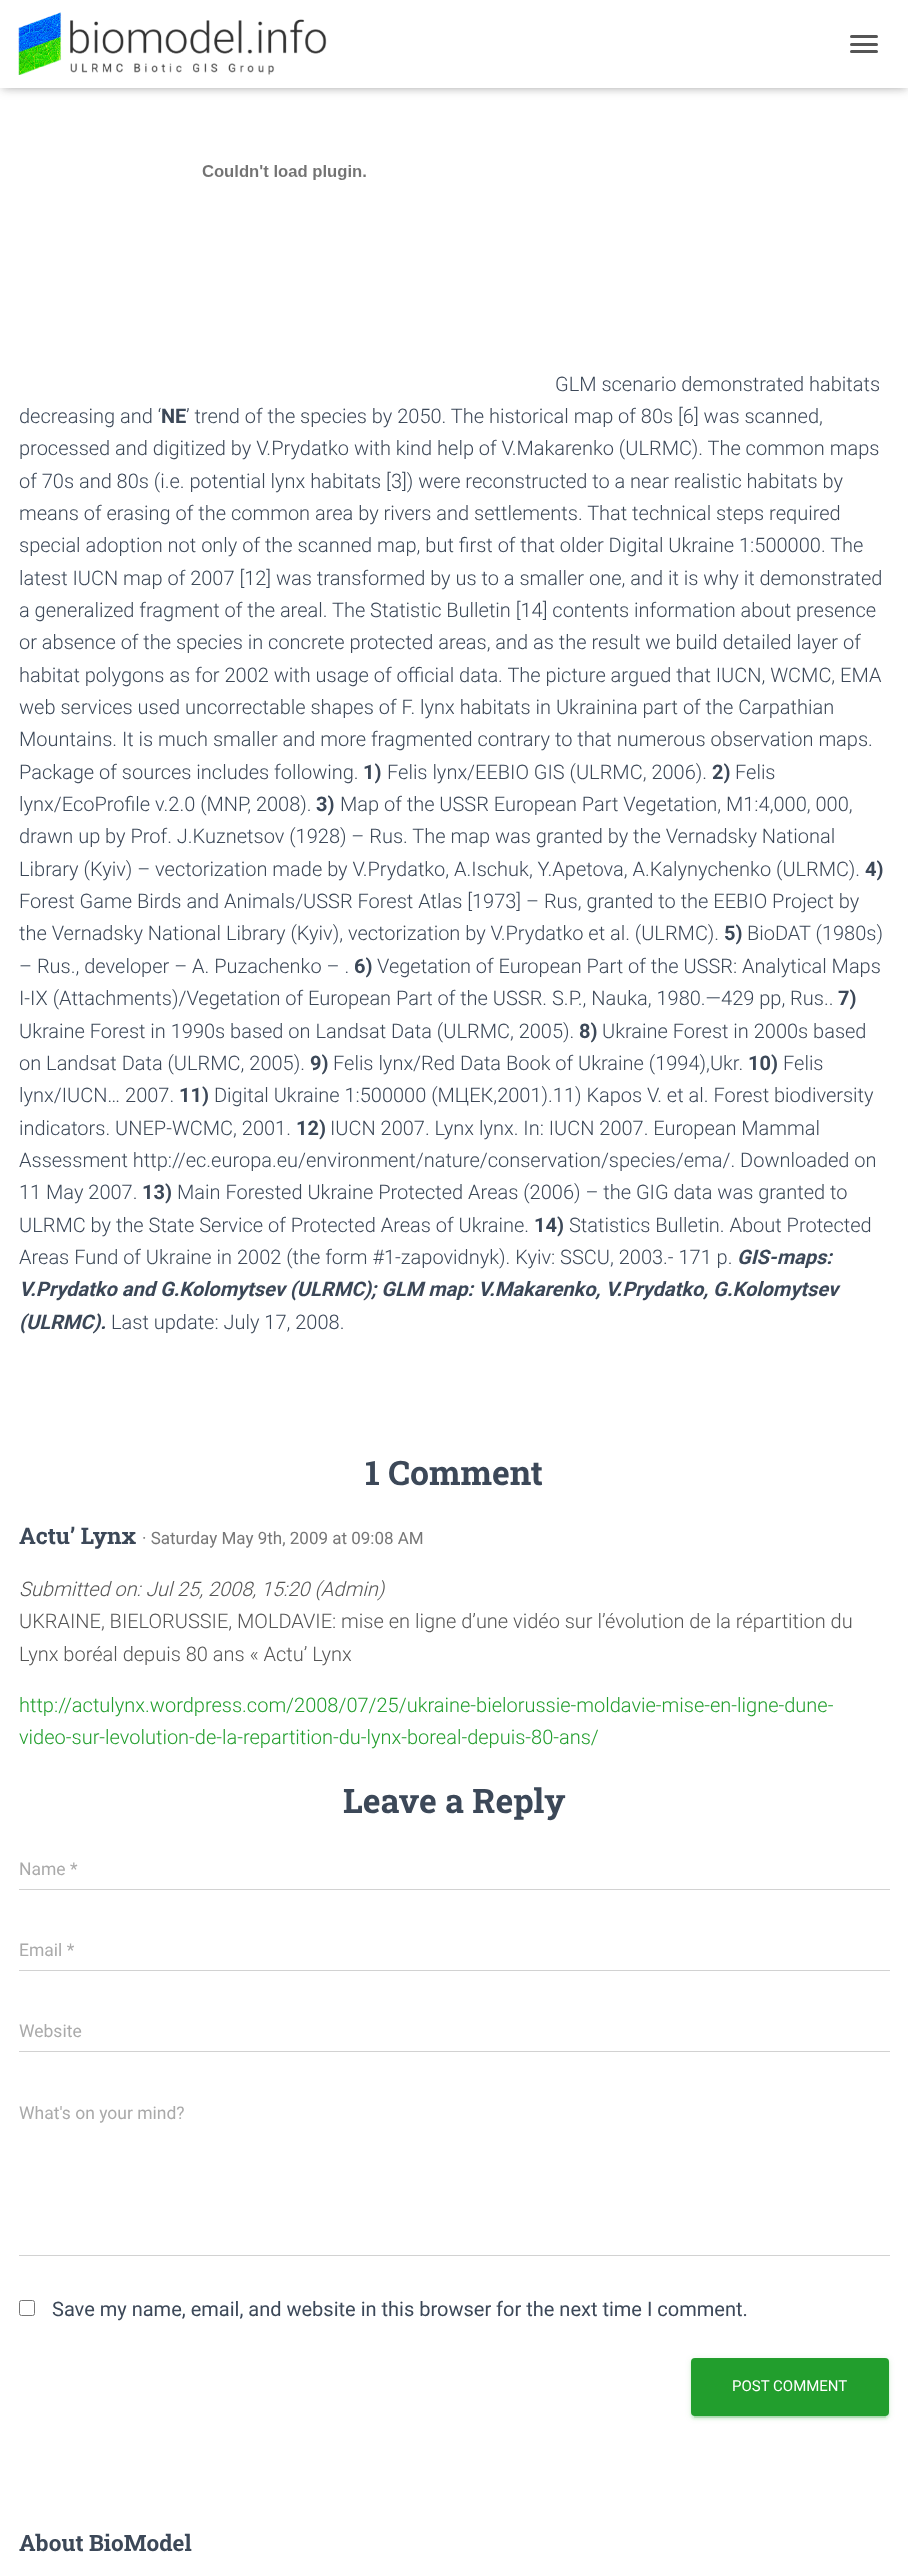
<svg xmlns="http://www.w3.org/2000/svg" width="908" height="2559" viewBox="0 0 908 2559">
  <defs>
    <filter id="blur1" x="-50%" y="-200%" width="200%" height="500%"><feGaussianBlur stdDeviation="3"/></filter>
    <filter id="blur2" x="-50%" y="-200%" width="200%" height="500%"><feGaussianBlur stdDeviation="6"/></filter>
    <filter id="blur3" x="-50%" y="-200%" width="200%" height="500%"><feGaussianBlur stdDeviation="0.5"/></filter>
    <filter id="blur4" x="-50%" y="-200%" width="200%" height="500%"><feGaussianBlur stdDeviation="1"/></filter>
  </defs>
  <rect width="100%" height="100%" fill="#ffffff"/>
  <rect x="3" y="8" width="903" height="82" fill="#000000" fill-opacity="0.1" filter="url(#blur1)"/>
  <rect x="0" y="1" width="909" height="88" fill="#000000" fill-opacity="0.12" filter="url(#blur2)"/>
  <rect x="8" y="9" width="893" height="72" fill="#000000" fill-opacity="0.42" filter="url(#blur2)"/>
  <rect x="0" y="0" width="908" height="88" fill="#ffffff"/>
  <image x="18" y="12" width="309" height="63" href="img1.png"/>
  <rect x="850" y="35" width="28" height="3" rx="1.5" fill="#555555"/>
  <rect x="850" y="43" width="28" height="3" rx="1.5" fill="#555555"/>
  <rect x="850" y="50" width="28" height="3" rx="1.5" fill="#555555"/>
  <image x="202" y="165" width="164" height="15" href="img2.png"/>
  <text x="555" y="391" font-family="Roboto" font-size="20" font-weight="300" fill="#3c4858">GLM scenario demonstrated habitats</text>
  <text x="19" y="423" font-family="Roboto" font-size="20" font-weight="300" fill="#3c4858">decreasing and ‘</text>
  <text x="161" y="423" font-family="Roboto" font-size="20" font-weight="bold" fill="#3c4858">NE</text>
  <text x="186" y="423" font-family="Roboto" font-size="20" font-weight="300" fill="#3c4858">’ trend of the species by 2050. The historical map of 80s [6] was scanned,</text>
  <text x="19" y="455" font-family="Roboto" font-size="20" font-weight="300" fill="#3c4858">processed and digitized by V.Prydatko with kind help of V.Makarenko (ULRMC). The common maps</text>
  <text x="19" y="488" font-family="Roboto" font-size="20" font-weight="300" fill="#3c4858">of 70s and 80s (i.e. potential lynx habitats [3]) were reconstructed to a near realistic habitats by</text>
  <text x="19" y="520" font-family="Roboto" font-size="20" font-weight="300" fill="#3c4858">means of erasing of the common area by rivers and settlements. That technical steps required</text>
  <text x="19" y="552" font-family="Roboto" font-size="20" font-weight="300" fill="#3c4858">special adoption not only of the scanned map, but first of that older Digital Ukraine 1:500000. The</text>
  <text x="19" y="585" font-family="Roboto" font-size="20" font-weight="300" fill="#3c4858">latest IUCN map of 2007 [12] was transformed by us to a smaller one, and it is why it demonstrated</text>
  <text x="19" y="617" font-family="Roboto" font-size="20" font-weight="300" fill="#3c4858">a generalized fragment of the areal. The Statistic Bulletin [14] contents information about presence</text>
  <text x="19" y="649" font-family="Roboto" font-size="20" font-weight="300" fill="#3c4858">or absence of the species in concrete protected areas, and as the result we build detailed layer of</text>
  <text x="19" y="682" font-family="Roboto" font-size="20" font-weight="300" fill="#3c4858">habitat polygons as for 2002 with usage of official data. The picture argued that IUCN, WCMC, EMA</text>
  <text x="19" y="714" font-family="Roboto" font-size="20" font-weight="300" fill="#3c4858">web services used uncorrectable shapes of F. lynx habitats in Ukrainina part of the Carpathian</text>
  <text x="19" y="746" font-family="Roboto" font-size="20" font-weight="300" fill="#3c4858">Mountains. It is much smaller and more fragmented contrary to that numerous observation maps.</text>
  <text x="19" y="779" font-family="Roboto" font-size="20" font-weight="300" fill="#3c4858">Package of sources includes following.</text>
  <text x="363" y="779" font-family="Roboto" font-size="20" font-weight="bold" fill="#3c4858">1)</text>
  <text x="387" y="779" font-family="Roboto" font-size="20" font-weight="300" fill="#3c4858">Felis lynx/EEBIO GIS (ULRMC, 2006).</text>
  <text x="712" y="779" font-family="Roboto" font-size="20" font-weight="bold" fill="#3c4858">2)</text>
  <text x="735" y="779" font-family="Roboto" font-size="20" font-weight="300" fill="#3c4858">Felis</text>
  <text x="19" y="811" font-family="Roboto" font-size="20" font-weight="300" fill="#3c4858">lynx/EcoProfile v.2.0 (MNP, 2008).</text>
  <text x="316" y="811" font-family="Roboto" font-size="20" font-weight="bold" fill="#3c4858">3)</text>
  <text x="340" y="811" font-family="Roboto" font-size="20" font-weight="300" fill="#3c4858">Map of the USSR European Part Vegetation, M1:4,000, 000,</text>
  <text x="19" y="843" font-family="Roboto" font-size="20" font-weight="300" fill="#3c4858">drawn up by Prof. J.Kuznetsov (1928) – Rus. The map was granted by the Vernadsky National</text>
  <text x="19" y="876" font-family="Roboto" font-size="20" font-weight="300" fill="#3c4858">Library (Kyiv) – vectorization made by V.Prydatko, A.Ischuk, Y.Apetova, A.Kalynychenko (ULRMC).</text>
  <text x="865" y="876" font-family="Roboto" font-size="20" font-weight="bold" fill="#3c4858">4)</text>
  <text x="19" y="908" font-family="Roboto" font-size="20" font-weight="300" fill="#3c4858">Forest Game Birds and Animals/USSR Forest Atlas [1973] – Rus, granted to the EEBIO Project by</text>
  <text x="19" y="940" font-family="Roboto" font-size="20" font-weight="300" fill="#3c4858">the Vernadsky National Library (Kyiv), vectorization by V.Prydatko et al. (ULRMC).</text>
  <text x="724" y="940" font-family="Roboto" font-size="20" font-weight="bold" fill="#3c4858">5)</text>
  <text x="747" y="940" font-family="Roboto" font-size="20" font-weight="300" fill="#3c4858">BioDAT (1980s)</text>
  <text x="19" y="973" font-family="Roboto" font-size="20" font-weight="300" fill="#3c4858">– Rus., developer – A. Puzachenko – .</text>
  <text x="354" y="973" font-family="Roboto" font-size="20" font-weight="bold" fill="#3c4858">6)</text>
  <text x="377" y="973" font-family="Roboto" font-size="20" font-weight="300" fill="#3c4858">Vegetation of European Part of the USSR: Analytical Maps</text>
  <text x="19" y="1005" font-family="Roboto" font-size="20" font-weight="300" fill="#3c4858">I-IX (Attachments)/Vegetation of European Part of the USSR. S.P., Nauka, 1980.—429 pp, Rus..</text>
  <text x="838" y="1005" font-family="Roboto" font-size="20" font-weight="bold" fill="#3c4858">7)</text>
  <text x="19" y="1038" font-family="Roboto" font-size="20" font-weight="300" fill="#3c4858">Ukraine Forest in 1990s based on Landsat Data (ULRMC, 2005).</text>
  <text x="579" y="1038" font-family="Roboto" font-size="20" font-weight="bold" fill="#3c4858">8)</text>
  <text x="602" y="1038" font-family="Roboto" font-size="20" font-weight="300" fill="#3c4858">Ukraine Forest in 2000s based</text>
  <text x="19" y="1070" font-family="Roboto" font-size="20" font-weight="300" fill="#3c4858">on Landsat Data (ULRMC, 2005).</text>
  <text x="310" y="1070" font-family="Roboto" font-size="20" font-weight="bold" fill="#3c4858">9)</text>
  <text x="333" y="1070" font-family="Roboto" font-size="20" font-weight="300" fill="#3c4858">Felis lynx/Red Data Book of Ukraine (1994),Ukr.</text>
  <text x="748" y="1070" font-family="Roboto" font-size="20" font-weight="bold" fill="#3c4858">10)</text>
  <text x="783" y="1070" font-family="Roboto" font-size="20" font-weight="300" fill="#3c4858">Felis</text>
  <text x="19" y="1102" font-family="Roboto" font-size="20" font-weight="300" fill="#3c4858">lynx/IUCN… 2007.</text>
  <text x="179" y="1102" font-family="Roboto" font-size="20" font-weight="bold" fill="#3c4858">11)</text>
  <text x="214" y="1102" font-family="Roboto" font-size="20" font-weight="300" fill="#3c4858">Digital Ukraine 1:500000 (МЦЕК,2001).11) Kapos V. et al. Forest biodiversity</text>
  <text x="19" y="1135" font-family="Roboto" font-size="20" font-weight="300" fill="#3c4858">indicators. UNEP-WCMC, 2001.</text>
  <text x="296" y="1135" font-family="Roboto" font-size="20" font-weight="bold" fill="#3c4858">12)</text>
  <text x="330" y="1135" font-family="Roboto" font-size="20" font-weight="300" fill="#3c4858">IUCN 2007. Lynx lynx. In: IUCN 2007. European Mammal</text>
  <text x="19" y="1167" font-family="Roboto" font-size="20" font-weight="300" fill="#3c4858">Assessment http://ec.europa.eu/environment/nature/conservation/species/ema/. Downloaded on</text>
  <text x="19" y="1199" font-family="Roboto" font-size="20" font-weight="300" fill="#3c4858">11 May 2007.</text>
  <text x="142" y="1199" font-family="Roboto" font-size="20" font-weight="bold" fill="#3c4858">13)</text>
  <text x="177" y="1199" font-family="Roboto" font-size="20" font-weight="300" fill="#3c4858">Main Forested Ukraine Protected Areas (2006) – the GIG data was granted to</text>
  <text x="19" y="1232" font-family="Roboto" font-size="20" font-weight="300" fill="#3c4858">ULRMC by the State Service of Protected Areas of Ukraine.</text>
  <text x="534" y="1232" font-family="Roboto" font-size="20" font-weight="bold" fill="#3c4858">14)</text>
  <text x="569" y="1232" font-family="Roboto" font-size="20" font-weight="300" fill="#3c4858">Statistics Bulletin. About Protected</text>
  <text x="19" y="1264" font-family="Roboto" font-size="20" font-weight="300" fill="#3c4858">Areas Fund of Ukraine in 2002 (the form #1-zapovidnyk). Kyiv: SSCU, 2003.- 171 p.</text>
  <text x="737" y="1264" font-family="Roboto" font-size="20" font-weight="bold" font-style="italic" fill="#3c4858">GIS-maps:</text>
  <text x="19" y="1296" font-family="Roboto" font-size="20" font-weight="bold" font-style="italic" fill="#3c4858">V.Prydatko and G.Kolomytsev (ULRMC); GLM map: V.Makarenko, V.Prydatko, G.Kolomytsev</text>
  <text x="19" y="1329" font-family="Roboto" font-size="20" font-weight="bold" font-style="italic" fill="#3c4858">(ULRMC).</text>
  <text x="111" y="1329" font-family="Roboto" font-size="20" font-weight="300" fill="#3c4858">Last update: July 17, 2008.</text>
  <text x="365" y="1485" font-family="Roboto Slab" font-size="33.75" font-weight="bold" fill="#3c4858">1 Comment</text>
  <text x="19" y="1544" font-family="Roboto Slab" font-size="22.75" font-weight="bold" fill="#3c4858">Actu’ Lynx</text>
  <text x="142" y="1544" font-family="Roboto" font-size="17" fill="#777777">· Saturday May 9th, 2009 at 09:08 AM</text>
  <text x="19" y="1596" font-family="Roboto" font-size="20" font-weight="300" font-style="italic" fill="#555555">Submitted on: Jul 25, 2008, 15:20 (Admin)</text>
  <text x="19" y="1628" font-family="Roboto" font-size="20" font-weight="300" fill="#555555">UKRAINE, BIELORUSSIE, MOLDAVIE: mise en ligne d’une vidéo sur l’évolution de la répartition du</text>
  <text x="19" y="1661" font-family="Roboto" font-size="20" font-weight="300" fill="#555555">Lynx boréal depuis 80 ans « Actu’ Lynx</text>
  <text x="19" y="1712" font-family="Roboto" font-size="20" font-weight="300" fill="#229e2d">http://actulynx.wordpress.com/2008/07/25/ukraine-bielorussie-moldavie-mise-en-ligne-dune-</text>
  <text x="19" y="1744" font-family="Roboto" font-size="20" font-weight="300" fill="#229e2d">video-sur-levolution-de-la-repartition-du-lynx-boreal-depuis-80-ans/</text>
  <text x="343" y="1813" font-family="Roboto Slab" font-size="33.75" font-weight="bold" fill="#3c4858">Leave a Reply</text>
  <text x="19" y="1875" font-family="Roboto" font-size="17.5" fill="#aaaaaa">Name *</text>
  <rect x="19" y="1889" width="871" height="1" fill="#d2d2d2"/>
  <text x="19" y="1956" font-family="Roboto" font-size="17.5" fill="#aaaaaa">Email *</text>
  <rect x="19" y="1970" width="871" height="1" fill="#d2d2d2"/>
  <text x="19" y="2037" font-family="Roboto" font-size="17.5" fill="#aaaaaa">Website</text>
  <rect x="19" y="2051" width="871" height="1" fill="#d2d2d2"/>
  <text x="19" y="2119" font-family="Roboto" font-size="17.5" fill="#aaaaaa">What's on your mind?</text>
  <rect x="19" y="2255" width="871" height="1" fill="#d2d2d2"/>
  <rect x="19.5" y="2300.5" width="15" height="15" rx="2" fill="none" stroke="#767676"/>
  <text x="52" y="2316" font-family="Roboto" font-size="20" fill="#3c4858">Save my name, email, and website in this browser for the next time I comment.</text>
  <rect x="691" y="2359" width="198" height="59" rx="4" fill="#229e2d" fill-opacity="0.12" filter="url(#blur1)"/>
  <rect x="694" y="2364" width="192" height="54" rx="1" fill="#229e2d" fill-opacity="0.2" filter="url(#blur3)"/>
  <rect x="691" y="2360" width="198" height="59" rx="4" fill="#229e2d" fill-opacity="0.14" filter="url(#blur4)"/>
  <rect x="691" y="2358" width="198" height="58" rx="4" fill="#229e2d"/>
  <text x="732" y="2391" font-family="Roboto" font-size="15" fill="#ffffff">POST COMMENT</text>
  <text x="19" y="2551" font-family="Roboto Slab" font-size="22.5" font-weight="bold" fill="#3c4858">About BioModel</text>
</svg>
